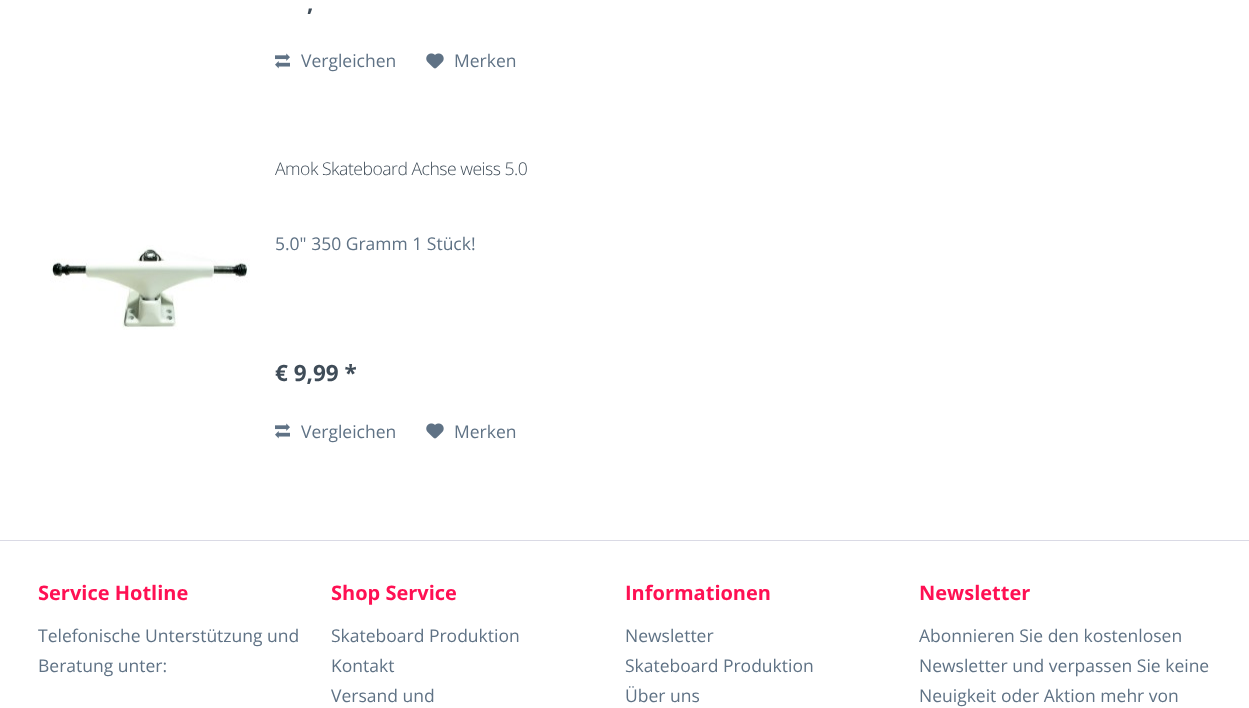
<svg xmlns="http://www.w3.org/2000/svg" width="1249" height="708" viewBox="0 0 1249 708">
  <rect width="100%" height="100%" fill="#ffffff"/>
  <text x="307" y="11" font-family="Open Sans" font-size="22.5" font-weight="bold" fill="#3f4c58">,</text>
  <image x="275" y="53" width="15" height="16" href="img1.png"/>
  <text x="301" y="67" font-family="Open Sans" font-size="17.5" fill="#5f7285">Vergleichen</text>
  <image x="426" y="53" width="18" height="16" href="img2.png"/>
  <text x="454" y="67" font-family="Open Sans" font-size="17.5" fill="#5f7285">Merken</text>
  <text x="275" y="175" font-family="Open Sans" font-size="17.6" font-weight="300" letter-spacing="-0.5" fill="#3f4c58">Amok Skateboard Achse weiss 5.0</text>
  <text x="275" y="250" font-family="Open Sans" font-size="17.5" fill="#5f7285">5.0" 350 Gramm 1 Stück!</text>
  <image x="50" y="245" width="200" height="85" href="img3.png"/>
  <text x="275" y="381" font-family="Open Sans" font-size="22.5" font-weight="bold" fill="#3f4c58">€ 9,99 *</text>
  <image x="275" y="423" width="15" height="16" href="img1.png"/>
  <text x="301" y="438" font-family="Open Sans" font-size="17.5" fill="#5f7285">Vergleichen</text>
  <image x="426" y="423" width="18" height="16" href="img2.png"/>
  <text x="454" y="438" font-family="Open Sans" font-size="17.5" fill="#5f7285">Merken</text>
  <rect x="0" y="540" width="1249" height="1" fill="#dadae5"/>
  <text x="38" y="600" font-family="Open Sans" font-size="20" font-weight="bold" fill="#ff1053">Service Hotline</text>
  <text x="38" y="642" font-family="Open Sans" font-size="17.5" fill="#5f7285">Telefonische Unterstützung und</text>
  <text x="38" y="672" font-family="Open Sans" font-size="17.5" fill="#5f7285">Beratung unter:</text>
  <text x="331" y="600" font-family="Open Sans" font-size="20" font-weight="bold" fill="#ff1053">Shop Service</text>
  <text x="331" y="642" font-family="Open Sans" font-size="17.5" fill="#5f7285">Skateboard Produktion</text>
  <text x="331" y="672" font-family="Open Sans" font-size="17.5" fill="#5f7285">Kontakt</text>
  <text x="331" y="702" font-family="Open Sans" font-size="17.5" fill="#5f7285">Versand und</text>
  <text x="625" y="600" font-family="Open Sans" font-size="20" font-weight="bold" fill="#ff1053">Informationen</text>
  <text x="625" y="642" font-family="Open Sans" font-size="17.5" fill="#5f7285">Newsletter</text>
  <text x="625" y="672" font-family="Open Sans" font-size="17.5" fill="#5f7285">Skateboard Produktion</text>
  <text x="625" y="702" font-family="Open Sans" font-size="17.5" fill="#5f7285">Über uns</text>
  <text x="919" y="600" font-family="Open Sans" font-size="20" font-weight="bold" fill="#ff1053">Newsletter</text>
  <text x="919" y="642" font-family="Open Sans" font-size="17.5" fill="#5f7285">Abonnieren Sie den kostenlosen</text>
  <text x="919" y="672" font-family="Open Sans" font-size="17.5" fill="#5f7285">Newsletter und verpassen Sie keine</text>
  <text x="919" y="702" font-family="Open Sans" font-size="17.5" fill="#5f7285">Neuigkeit oder Aktion mehr von</text>
</svg>
